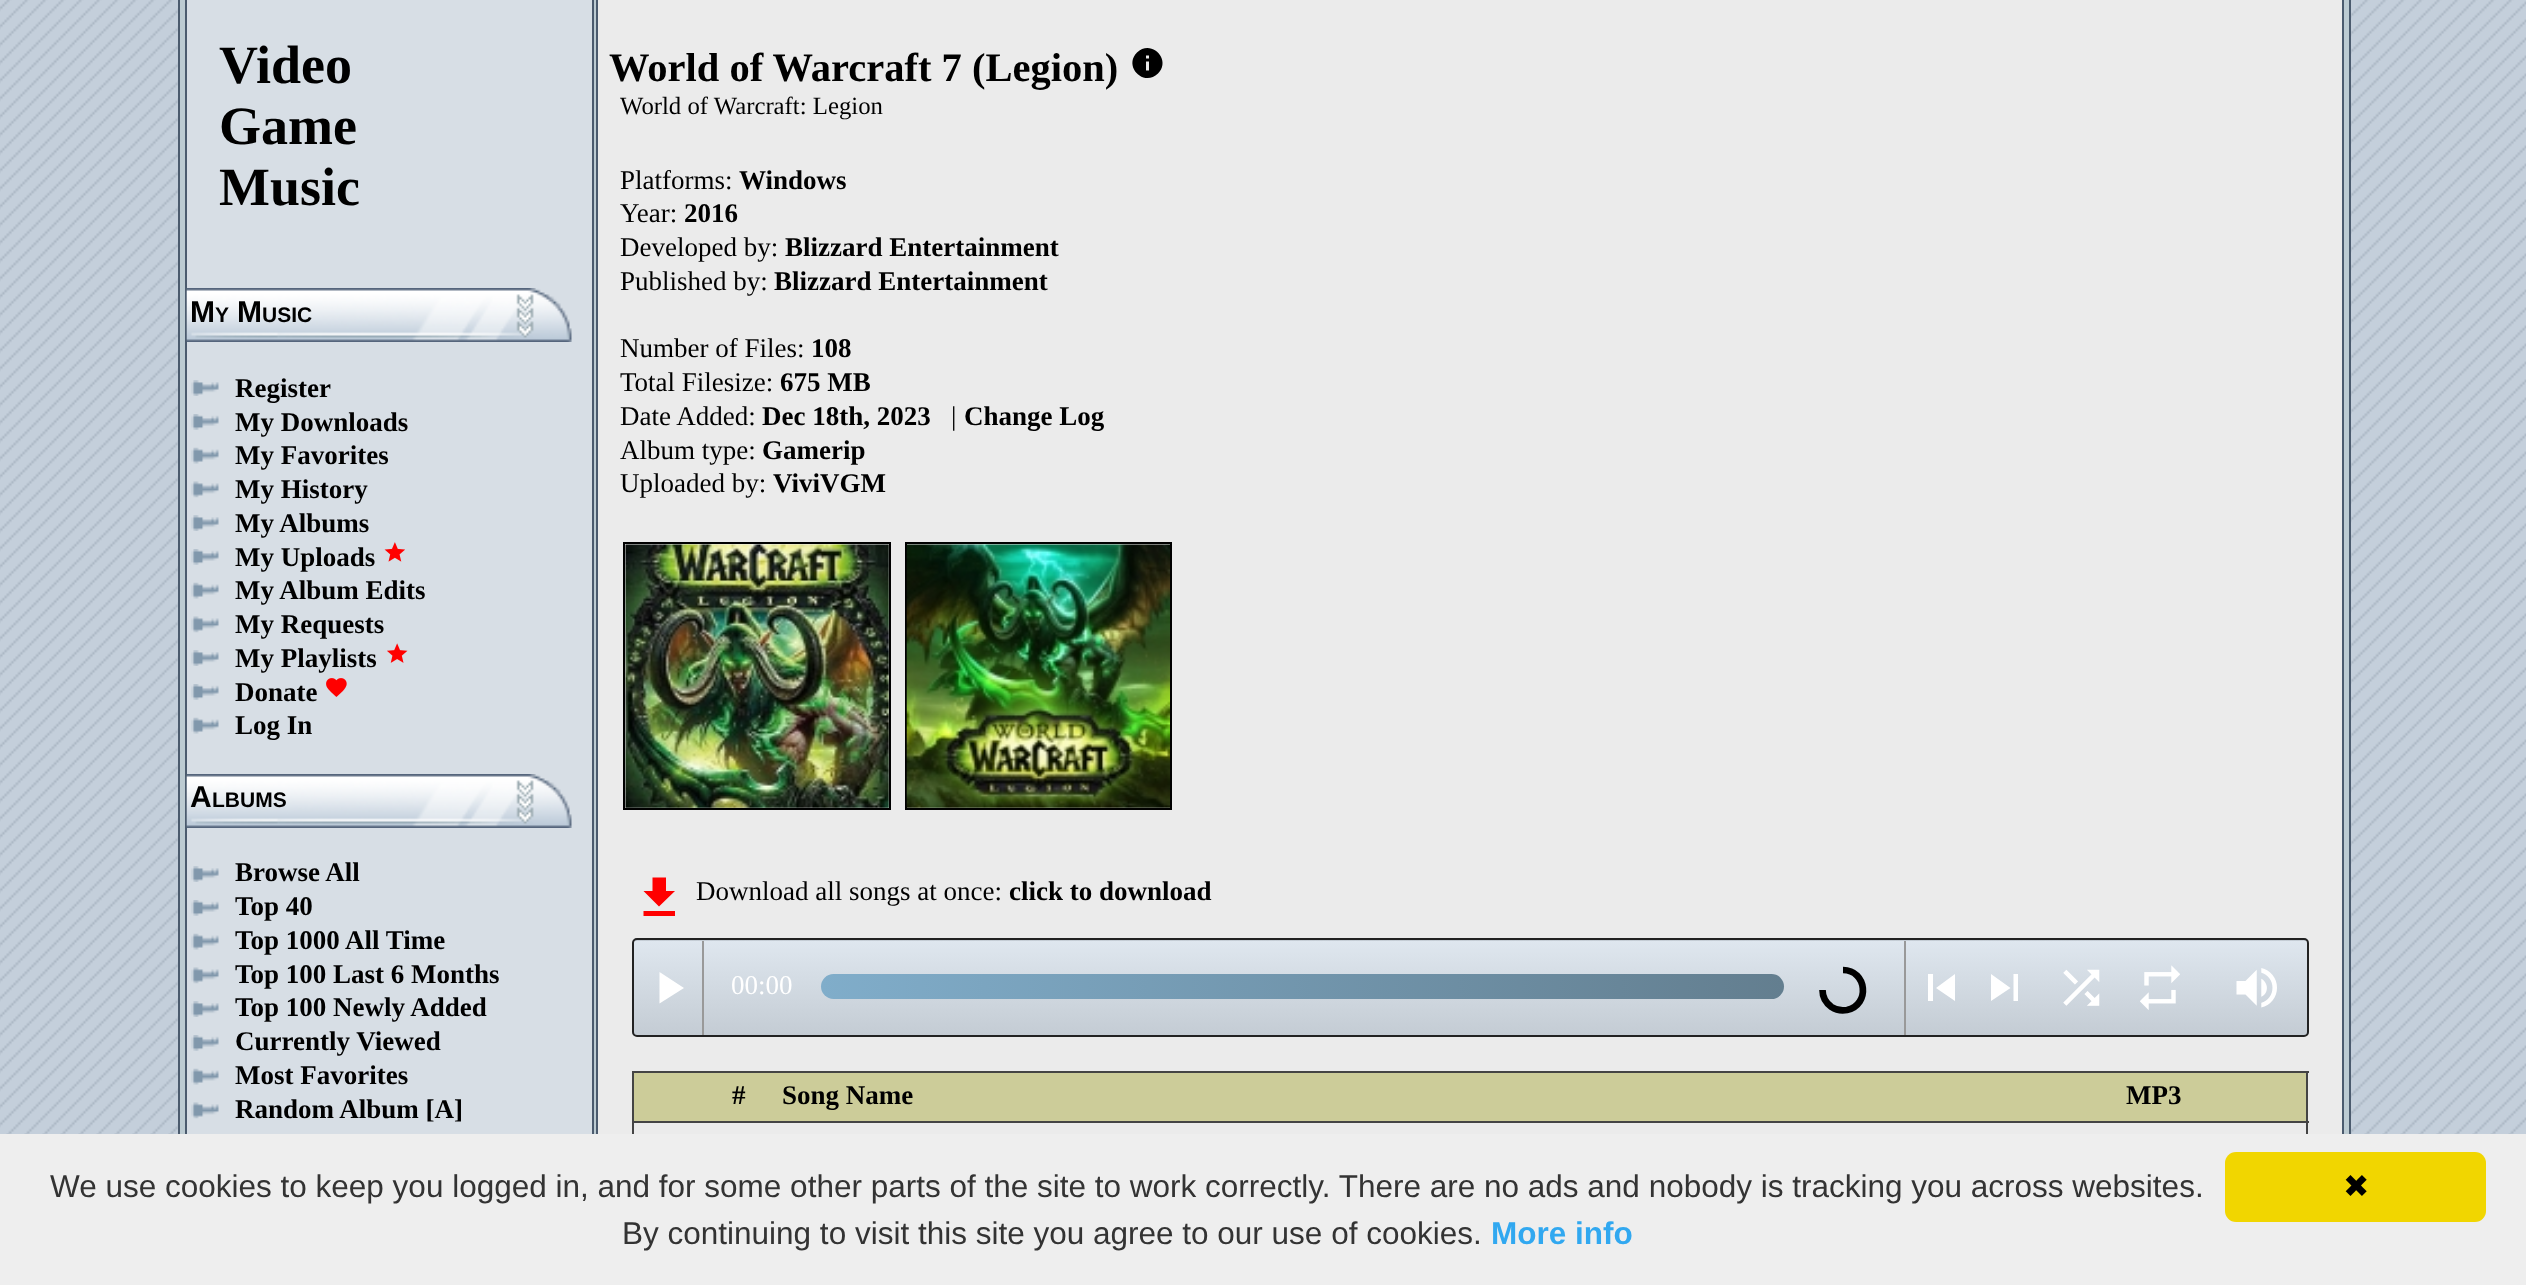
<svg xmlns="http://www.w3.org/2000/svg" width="2526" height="1285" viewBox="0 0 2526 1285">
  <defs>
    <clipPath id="clip1"><rect x="632" y="938" width="1677" height="99" rx="5"/></clipPath>
    <linearGradient id="g1" gradientUnits="userSpaceOnUse" x1="1470" y1="846" x2="1470" y2="941"><stop offset="0" stop-color="#dfe7ef"/><stop offset="1" stop-color="#c4ccd4"/></linearGradient>
    <linearGradient id="g2" gradientUnits="userSpaceOnUse" x1="1470" y1="940" x2="1470" y2="1035"><stop offset="0" stop-color="#dfe7ef"/><stop offset="1" stop-color="#c4ccd4"/></linearGradient>
    <linearGradient id="g3" gradientUnits="userSpaceOnUse" x1="821" y1="987" x2="1784" y2="987"><stop offset="0" stop-color="#80adca"/><stop offset="1" stop-color="#637e8f"/></linearGradient>
  </defs>
  <rect width="100%" height="100%" fill="#ffffff"/>
  <image x="0" y="0" width="2526" height="1134" href="img1.png"/>
  <rect x="180" y="0" width="2169" height="1134" fill="#bccbd2"/>
  <rect x="2349" y="0" width="2" height="1134" fill="#4b5b6e"/>
  <rect x="178" y="0" width="2" height="1134" fill="#4b5b6e"/>
  <rect x="187" y="0" width="405" height="1134" fill="#d7dee5"/>
  <rect x="592" y="0" width="2" height="1134" fill="#4b5b6e"/>
  <rect x="185" y="0" width="2" height="1134" fill="#4b5b6e"/>
  <text x="219" y="83" font-family="Liberation Serif" font-size="54" font-weight="bold" fill="#000000">Video</text>
  <text x="219" y="144" font-family="Liberation Serif" font-size="54" font-weight="bold" fill="#000000">Game</text>
  <text x="219" y="205" font-family="Liberation Serif" font-size="54" font-weight="bold" fill="#000000">Music</text>
  <image x="186" y="288" width="386" height="54" href="img2.png"/>
  <text x="190" y="322" font-family="Liberation Sans" font-size="30" font-weight="bold" fill="#000000">M</text>
  <text x="215" y="322" font-family="Liberation Sans" font-size="21" font-weight="bold" fill="#000000">Y</text>
  <text x="237" y="322" font-family="Liberation Sans" font-size="30" font-weight="bold" fill="#000000">M</text>
  <text x="262" y="322" font-family="Liberation Sans" font-size="21" font-weight="bold" fill="#000000">USIC</text>
  <image x="191" y="380" width="28" height="16" href="img3.png"/>
  <text x="235" y="397" font-family="Liberation Serif" font-size="27" font-weight="bold" fill="#000000">Register</text>
  <image x="191" y="414" width="28" height="16" href="img4.png"/>
  <text x="235" y="431" font-family="Liberation Serif" font-size="27" font-weight="bold" fill="#000000">My Downloads</text>
  <image x="191" y="447" width="28" height="17" href="img5.png"/>
  <text x="235" y="464" font-family="Liberation Serif" font-size="27" font-weight="bold" fill="#000000">My Favorites</text>
  <image x="191" y="481" width="28" height="17" href="img6.png"/>
  <text x="235" y="498" font-family="Liberation Serif" font-size="27" font-weight="bold" fill="#000000">My History</text>
  <image x="191" y="515" width="28" height="16" href="img3.png"/>
  <text x="235" y="532" font-family="Liberation Serif" font-size="27" font-weight="bold" fill="#000000">My Albums</text>
  <image x="191" y="549" width="28" height="16" href="img4.png"/>
  <text x="235" y="566" font-family="Liberation Serif" font-size="27" font-weight="bold" fill="#000000">My Uploads</text>
  <image x="384" y="542" width="21" height="20" href="img7.png"/>
  <image x="191" y="582" width="28" height="17" href="img5.png"/>
  <text x="235" y="599" font-family="Liberation Serif" font-size="27" font-weight="bold" fill="#000000">My Album Edits</text>
  <image x="191" y="616" width="28" height="17" href="img6.png"/>
  <text x="235" y="633" font-family="Liberation Serif" font-size="27" font-weight="bold" fill="#000000">My Requests</text>
  <image x="191" y="650" width="28" height="16" href="img3.png"/>
  <text x="235" y="667" font-family="Liberation Serif" font-size="27" font-weight="bold" fill="#000000">My Playlists</text>
  <image x="387" y="643" width="21" height="20" href="img8.png"/>
  <image x="191" y="684" width="28" height="16" href="img4.png"/>
  <text x="235" y="701" font-family="Liberation Serif" font-size="27" font-weight="bold" fill="#000000">Donate</text>
  <image x="326" y="678" width="21" height="19" href="img9.png"/>
  <image x="191" y="717" width="28" height="17" href="img5.png"/>
  <text x="235" y="734" font-family="Liberation Serif" font-size="27" font-weight="bold" fill="#000000">Log In</text>
  <image x="186" y="774" width="386" height="54" href="img10.png"/>
  <text x="190" y="807" font-family="Liberation Sans" font-size="30" font-weight="bold" fill="#000000">A</text>
  <text x="212" y="807" font-family="Liberation Sans" font-size="21" font-weight="bold" fill="#000000">LBUMS</text>
  <image x="191" y="866" width="28" height="16" href="img3.png"/>
  <text x="235" y="881" font-family="Liberation Serif" font-size="27" font-weight="bold" fill="#000000">Browse All</text>
  <image x="191" y="900" width="28" height="16" href="img4.png"/>
  <text x="235" y="915" font-family="Liberation Serif" font-size="27" font-weight="bold" fill="#000000">Top 40</text>
  <image x="191" y="933" width="28" height="17" href="img5.png"/>
  <text x="235" y="949" font-family="Liberation Serif" font-size="27" font-weight="bold" fill="#000000">Top 1000 All Time</text>
  <image x="191" y="967" width="28" height="17" href="img6.png"/>
  <text x="235" y="983" font-family="Liberation Serif" font-size="27" font-weight="bold" fill="#000000">Top 100 Last 6 Months</text>
  <image x="191" y="1001" width="28" height="16" href="img3.png"/>
  <text x="235" y="1016" font-family="Liberation Serif" font-size="27" font-weight="bold" fill="#000000">Top 100 Newly Added</text>
  <image x="191" y="1035" width="28" height="16" href="img4.png"/>
  <text x="235" y="1050" font-family="Liberation Serif" font-size="27" font-weight="bold" fill="#000000">Currently Viewed</text>
  <image x="191" y="1068" width="28" height="17" href="img5.png"/>
  <text x="235" y="1084" font-family="Liberation Serif" font-size="27" font-weight="bold" fill="#000000">Most Favorites</text>
  <image x="191" y="1102" width="28" height="17" href="img6.png"/>
  <text x="235" y="1118" font-family="Liberation Serif" font-size="27" font-weight="bold" fill="#000000">Random Album [A]</text>
  <rect x="2342" y="0" width="2" height="1134" fill="#4b5b6e"/>
  <rect x="598" y="0" width="1744" height="1134" fill="#ebebeb"/>
  <rect x="596" y="0" width="2" height="1134" fill="#4b5b6e"/>
  <text x="609" y="81" font-family="Liberation Serif" font-size="40.5" font-weight="bold" fill="#000000">World of Warcraft 7 (Legion)</text>
  <path d="M1149 58.5V55.5H1146V58.5ZM1149 70.5V61.5H1146V70.5ZM1137 52.5C1151 38.5 1172 59.5 1158 73.5C1144 87.5 1123 66.5 1137 52.5Z" fill="#000000"/>
  <text x="620" y="114" font-family="Liberation Serif" font-size="24.75" fill="#000000">World of Warcraft: Legion</text>
  <text x="620" y="189" font-family="Liberation Serif" font-size="27" fill="#000000">Platforms:</text>
  <text x="739" y="189" font-family="Liberation Serif" font-size="27" font-weight="bold" fill="#000000">Windows</text>
  <text x="620" y="222" font-family="Liberation Serif" font-size="27" fill="#000000">Year:</text>
  <text x="684" y="222" font-family="Liberation Serif" font-size="27" font-weight="bold" fill="#000000">2016</text>
  <text x="620" y="256" font-family="Liberation Serif" font-size="27" fill="#000000">Developed by:</text>
  <text x="785" y="256" font-family="Liberation Serif" font-size="27" font-weight="bold" fill="#000000">Blizzard Entertainment</text>
  <text x="620" y="290" font-family="Liberation Serif" font-size="27" fill="#000000">Published by:</text>
  <text x="774" y="290" font-family="Liberation Serif" font-size="27" font-weight="bold" fill="#000000">Blizzard Entertainment</text>
  <text x="620" y="357" font-family="Liberation Serif" font-size="27" fill="#000000">Number of Files:</text>
  <text x="811" y="357" font-family="Liberation Serif" font-size="27" font-weight="bold" fill="#000000">108</text>
  <text x="620" y="391" font-family="Liberation Serif" font-size="27" fill="#000000">Total Filesize:</text>
  <text x="780" y="391" font-family="Liberation Serif" font-size="27" font-weight="bold" fill="#000000">675 MB</text>
  <text x="620" y="425" font-family="Liberation Serif" font-size="27" fill="#000000">Date Added:</text>
  <text x="762" y="425" font-family="Liberation Serif" font-size="27" font-weight="bold" fill="#000000">Dec 18th, 2023</text>
  <text x="951" y="425" font-family="Liberation Serif" font-size="27" fill="#000000">|</text>
  <text x="964" y="425" font-family="Liberation Serif" font-size="27" font-weight="bold" fill="#000000">Change Log</text>
  <text x="620" y="459" font-family="Liberation Serif" font-size="27" fill="#000000">Album type:</text>
  <text x="762" y="459" font-family="Liberation Serif" font-size="27" font-weight="bold" fill="#000000">Gamerip</text>
  <text x="620" y="492" font-family="Liberation Serif" font-size="27" fill="#000000">Uploaded by:</text>
  <text x="773" y="492" font-family="Liberation Serif" font-size="27" font-weight="bold" fill="#000000">ViviVGM</text>
  <rect x="624" y="543" width="266" height="266" fill="none" stroke="#000000" stroke-width="2"/>
  <image x="625" y="544" width="264" height="264" href="img11.png"/>
  <rect x="906" y="543" width="265" height="266" fill="none" stroke="#000000" stroke-width="2"/>
  <image x="906" y="544" width="264" height="264" href="img12.png"/>
  <path d="M643.5 911H675V916H643.5ZM675 891L659 906.5L643.5 891H652.5V877.5H666V891Z" fill="#ff0000"/>
  <text x="696" y="900" font-family="Liberation Serif" font-size="27" fill="#000000">Download all songs at once:</text>
  <text x="1009" y="900" font-family="Liberation Serif" font-size="27" font-weight="bold" fill="#000000">click to download</text>
  <g clip-path="url(#clip1)">
    <rect x="632" y="938" width="1677" height="3" fill="url(#g1)"/>
    <rect x="632" y="941" width="1677" height="94" fill="url(#g2)"/>
  </g>
  <rect x="633" y="939" width="1675" height="97" rx="4" fill="none" stroke="#222222" stroke-width="2"/>
  <rect x="702" y="941" width="2" height="94" fill="#999999"/>
  <path d="M659.5 972L684 988L659.5 1003.5Z" fill="#ffffff"/>
  <text x="731" y="994" font-family="Liberation Serif" font-size="27" fill="#ffffff">00:00</text>
  <rect x="821" y="974" width="963" height="25" rx="12.5" fill="url(#g3)"/>
  <rect x="1904" y="941" width="2" height="94" fill="#999999"/>
  <path d="M1843 970C1867 970 1870.5 1005 1847 1010C1841.5 1011 1836 1010 1831.5 1007C1826 1003 1822.5 996.5 1822.5 990" fill="none" stroke="#000000" stroke-width="6.7"/>
  <path d="M1936 988L1955 974V1001ZM1928 974H1933V1001H1928Z" fill="#ffffff"/>
  <path d="M2013.5 974H2018V1001H2013.5ZM1991 1001V974L2010.5 988Z" fill="#ffffff"/>
  <image x="2063" y="969" width="37" height="37" href="img13.png"/>
  <image x="2140" y="965" width="40" height="45" href="img14.png"/>
  <image x="2236" y="968" width="41" height="40" href="img15.png"/>
  <rect x="632" y="1071" width="1677" height="2" fill="#444444"/>
  <rect x="2306" y="1071" width="2" height="63" fill="#444444"/>
  <rect x="632" y="1071" width="2" height="63" fill="#444444"/>
  <rect x="634" y="1073" width="1672" height="48" fill="#cccc99"/>
  <text x="732" y="1104" font-family="Liberation Serif" font-size="27" font-weight="bold" fill="#000000">#</text>
  <text x="782" y="1104" font-family="Liberation Serif" font-size="27" font-weight="bold" fill="#000000">Song Name</text>
  <text x="2126" y="1104" font-family="Liberation Serif" font-size="27" font-weight="bold" fill="#000000">MP3</text>
  <rect x="632" y="1121" width="1677" height="2" fill="#444444"/>
  <rect x="0" y="1134" width="2526" height="151" fill="#eeeeee"/>
  <text x="50" y="1197" font-family="Liberation Sans" font-size="31.5" fill="#333333">We use cookies to keep you logged in, and for some other parts of the site to work correctly. There are no ads and nobody is tracking you across websites.</text>
  <text x="622" y="1244" font-family="Liberation Sans" font-size="31.5" fill="#333333">By continuing to visit this site you agree to our use of cookies.</text>
  <text x="1491" y="1244" font-family="Liberation Sans" font-size="31.5" font-weight="bold" fill="#31a8f0">More info</text>
  <rect x="2225" y="1152" width="261" height="70" rx="11" fill="#f1d600"/>
  <text x="2343" y="1197" font-family="DejaVu Sans" font-size="31.5" fill="#000000">✖</text>
</svg>
